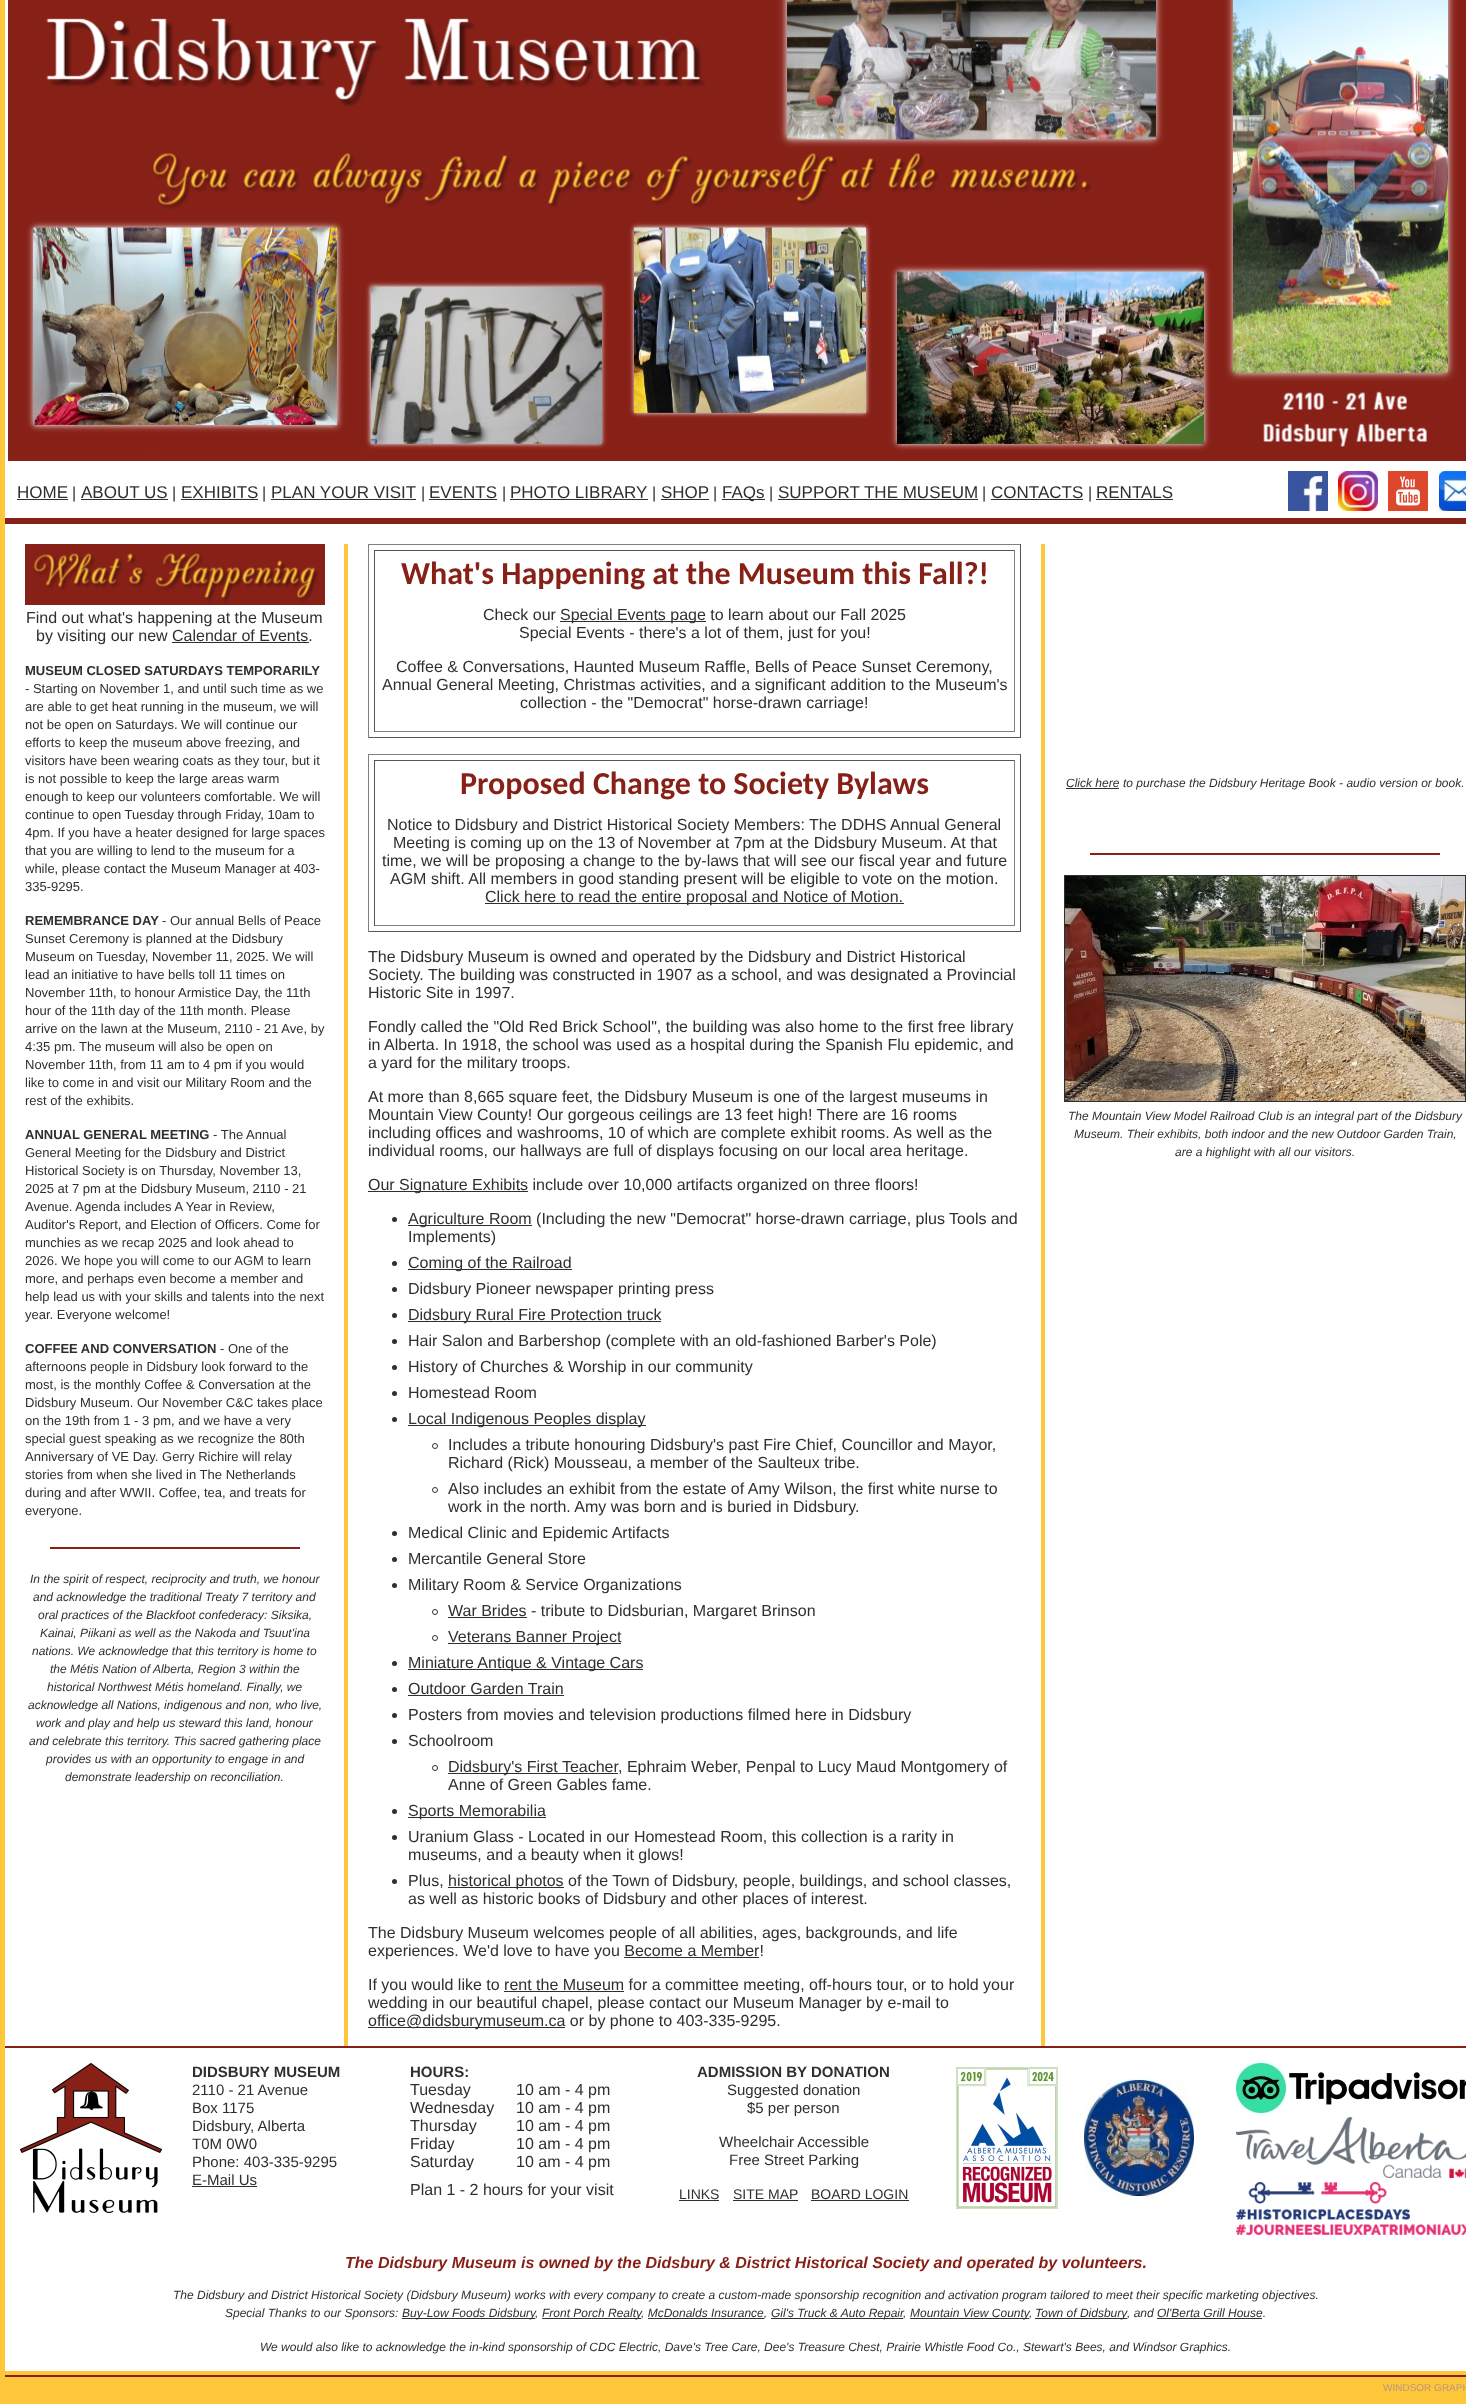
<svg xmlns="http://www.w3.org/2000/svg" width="1466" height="2404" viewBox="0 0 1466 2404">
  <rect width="100%" height="100%" fill="#fdc739"/>
  <rect x="5" y="0" width="1461" height="518" fill="#ffffff"/>
  <image x="8" y="0" width="1458" height="461" href="img1.png"/>
  <text x="17" y="498" font-family="Liberation Sans" font-size="17" fill="#2f2f2f">HOME</text>
  <rect x="17" y="499" width="51" height="1" fill="#2f2f2f"/>
  <text x="72" y="498" font-family="Liberation Sans" font-size="16" fill="#2f2f2f">|</text>
  <text x="81" y="498" font-family="Liberation Sans" font-size="17" fill="#2f2f2f">ABOUT US</text>
  <rect x="81" y="499" width="87" height="1" fill="#2f2f2f"/>
  <text x="172" y="498" font-family="Liberation Sans" font-size="16" fill="#2f2f2f">|</text>
  <text x="181" y="498" font-family="Liberation Sans" font-size="17" fill="#2f2f2f">EXHIBITS</text>
  <rect x="181" y="499" width="77" height="1" fill="#2f2f2f"/>
  <text x="262" y="498" font-family="Liberation Sans" font-size="16" fill="#2f2f2f">|</text>
  <text x="271" y="498" font-family="Liberation Sans" font-size="17" fill="#2f2f2f">PLAN YOUR VISIT</text>
  <rect x="271" y="499" width="145" height="1" fill="#2f2f2f"/>
  <text x="421" y="498" font-family="Liberation Sans" font-size="16" fill="#2f2f2f">|</text>
  <text x="429" y="498" font-family="Liberation Sans" font-size="17" fill="#2f2f2f">EVENTS</text>
  <rect x="429" y="499" width="68" height="1" fill="#2f2f2f"/>
  <text x="502" y="498" font-family="Liberation Sans" font-size="16" fill="#2f2f2f">|</text>
  <text x="510" y="498" font-family="Liberation Sans" font-size="17" fill="#2f2f2f">PHOTO LIBRARY</text>
  <rect x="510" y="499" width="138" height="1" fill="#2f2f2f"/>
  <text x="652" y="498" font-family="Liberation Sans" font-size="16" fill="#2f2f2f">|</text>
  <text x="661" y="498" font-family="Liberation Sans" font-size="17" fill="#2f2f2f">SHOP</text>
  <rect x="661" y="499" width="48" height="1" fill="#2f2f2f"/>
  <text x="713" y="498" font-family="Liberation Sans" font-size="16" fill="#2f2f2f">|</text>
  <rect x="722" y="499" width="43" height="1" fill="#2f2f2f"/>
  <text x="722" y="498" font-family="Liberation Sans" font-size="17" fill="#2f2f2f">FAQs</text>
  <text x="769" y="498" font-family="Liberation Sans" font-size="16" fill="#2f2f2f">|</text>
  <text x="778" y="498" font-family="Liberation Sans" font-size="17" fill="#2f2f2f">SUPPORT THE MUSEUM</text>
  <rect x="778" y="499" width="200" height="1" fill="#2f2f2f"/>
  <text x="982" y="498" font-family="Liberation Sans" font-size="16" fill="#2f2f2f">|</text>
  <text x="991" y="498" font-family="Liberation Sans" font-size="17" fill="#2f2f2f">CONTACTS</text>
  <rect x="991" y="499" width="92" height="1" fill="#2f2f2f"/>
  <text x="1088" y="498" font-family="Liberation Sans" font-size="16" fill="#2f2f2f">|</text>
  <text x="1096" y="498" font-family="Liberation Sans" font-size="17" fill="#2f2f2f">RENTALS</text>
  <rect x="1096" y="499" width="77" height="1" fill="#2f2f2f"/>
  <image x="1288" y="471" width="40" height="40" href="img2.png"/>
  <image x="1338" y="471" width="40" height="40" href="img3.png"/>
  <image x="1388" y="471" width="40" height="40" href="img4.png"/>
  <image x="1439" y="471" width="27" height="40" href="img5.png"/>
  <rect x="5" y="518" width="1461" height="6" fill="#872118"/>
  <rect x="5" y="524" width="1461" height="1522" fill="#ffffff"/>
  <image x="25" y="544" width="300" height="61" href="img6.png"/>
  <text x="26" y="623" font-family="Liberation Sans" font-size="16" fill="#2f2f2f">Find out what's happening at the Museum</text>
  <text x="36" y="641" font-family="Liberation Sans" font-size="16" fill="#2f2f2f">by visiting our new Calendar of Events.</text>
  <rect x="172" y="642" width="137" height="1" fill="#2f2f2f"/>
  <text x="25" y="675" font-family="Liberation Sans" font-size="13" font-weight="bold" fill="#2f2f2f">MUSEUM CLOSED SATURDAYS TEMPORARILY</text>
  <text x="25" y="693" font-family="Liberation Sans" font-size="13" fill="#2f2f2f">- Starting on November 1, and until such time as we</text>
  <text x="25" y="711" font-family="Liberation Sans" font-size="13" fill="#2f2f2f">are able to get heat running in the museum, we will</text>
  <text x="25" y="729" font-family="Liberation Sans" font-size="13" fill="#2f2f2f">not be open on Saturdays. We will continue our</text>
  <text x="25" y="747" font-family="Liberation Sans" font-size="13" fill="#2f2f2f">efforts to keep the museum above freezing, and</text>
  <text x="25" y="765" font-family="Liberation Sans" font-size="13" fill="#2f2f2f">visitors have been wearing coats as they tour, but it</text>
  <text x="25" y="783" font-family="Liberation Sans" font-size="13" fill="#2f2f2f">is not possible to keep the large areas warm</text>
  <text x="25" y="801" font-family="Liberation Sans" font-size="13" fill="#2f2f2f">enough to keep our volunteers comfortable. We will</text>
  <text x="25" y="819" font-family="Liberation Sans" font-size="13" fill="#2f2f2f">continue to open Tuesday through Friday, 10am to</text>
  <text x="25" y="837" font-family="Liberation Sans" font-size="13" fill="#2f2f2f">4pm. If you have a heater designed for large spaces</text>
  <text x="25" y="855" font-family="Liberation Sans" font-size="13" fill="#2f2f2f">that you are willing to lend to the museum for a</text>
  <text x="25" y="873" font-family="Liberation Sans" font-size="13" fill="#2f2f2f">while, please contact the Museum Manager at 403-</text>
  <text x="25" y="891" font-family="Liberation Sans" font-size="13" fill="#2f2f2f">335-9295.</text>
  <text x="25" y="925" font-family="Liberation Sans" font-size="13" font-weight="bold" fill="#2f2f2f">REMEMBRANCE DAY</text>
  <text x="162" y="925" font-family="Liberation Sans" font-size="13" fill="#2f2f2f">- Our annual Bells of Peace</text>
  <text x="25" y="943" font-family="Liberation Sans" font-size="13" fill="#2f2f2f">Sunset Ceremony is planned at the Didsbury</text>
  <text x="25" y="961" font-family="Liberation Sans" font-size="13" fill="#2f2f2f">Museum on Tuesday, November 11, 2025. We will</text>
  <text x="25" y="979" font-family="Liberation Sans" font-size="13" fill="#2f2f2f">lead an initiative to have bells toll 11 times on</text>
  <text x="25" y="997" font-family="Liberation Sans" font-size="13" fill="#2f2f2f">November 11th, to honour Armistice Day, the 11th</text>
  <text x="25" y="1015" font-family="Liberation Sans" font-size="13" fill="#2f2f2f">hour of the 11th day of the 11th month. Please</text>
  <text x="25" y="1033" font-family="Liberation Sans" font-size="13" fill="#2f2f2f">arrive on the lawn at the Museum, 2110 - 21 Ave, by</text>
  <text x="25" y="1051" font-family="Liberation Sans" font-size="13" fill="#2f2f2f">4:35 pm. The museum will also be open on</text>
  <text x="25" y="1069" font-family="Liberation Sans" font-size="13" fill="#2f2f2f">November 11th, from 11 am to 4 pm if you would</text>
  <text x="25" y="1087" font-family="Liberation Sans" font-size="13" fill="#2f2f2f">like to come in and visit our Military Room and the</text>
  <text x="25" y="1105" font-family="Liberation Sans" font-size="13" fill="#2f2f2f">rest of the exhibits.</text>
  <text x="25" y="1139" font-family="Liberation Sans" font-size="13" font-weight="bold" fill="#2f2f2f">ANNUAL GENERAL MEETING</text>
  <text x="213" y="1139" font-family="Liberation Sans" font-size="13" fill="#2f2f2f">- The Annual</text>
  <text x="25" y="1157" font-family="Liberation Sans" font-size="13" fill="#2f2f2f">General Meeting for the Didsbury and District</text>
  <text x="25" y="1175" font-family="Liberation Sans" font-size="13" fill="#2f2f2f">Historical Society is on Thursday, November 13,</text>
  <text x="25" y="1193" font-family="Liberation Sans" font-size="13" fill="#2f2f2f">2025 at 7 pm at the Didsbury Museum, 2110 - 21</text>
  <text x="25" y="1211" font-family="Liberation Sans" font-size="13" fill="#2f2f2f">Avenue. Agenda includes A Year in Review,</text>
  <text x="25" y="1229" font-family="Liberation Sans" font-size="13" fill="#2f2f2f">Auditor's Report, and Election of Officers. Come for</text>
  <text x="25" y="1247" font-family="Liberation Sans" font-size="13" fill="#2f2f2f">munchies as we recap 2025 and look ahead to</text>
  <text x="25" y="1265" font-family="Liberation Sans" font-size="13" fill="#2f2f2f">2026. We hope you will come to our AGM to learn</text>
  <text x="25" y="1283" font-family="Liberation Sans" font-size="13" fill="#2f2f2f">more, and perhaps even become a member and</text>
  <text x="25" y="1301" font-family="Liberation Sans" font-size="13" fill="#2f2f2f">help lead us with your skills and talents into the next</text>
  <text x="25" y="1319" font-family="Liberation Sans" font-size="13" fill="#2f2f2f">year. Everyone welcome!</text>
  <text x="25" y="1353" font-family="Liberation Sans" font-size="13" font-weight="bold" fill="#2f2f2f">COFFEE AND CONVERSATION</text>
  <text x="220" y="1353" font-family="Liberation Sans" font-size="13" fill="#2f2f2f">- One of the</text>
  <text x="25" y="1371" font-family="Liberation Sans" font-size="13" fill="#2f2f2f">afternoons people in Didsbury look forward to the</text>
  <text x="25" y="1389" font-family="Liberation Sans" font-size="13" fill="#2f2f2f">most, is the monthly Coffee &amp; Conversation at the</text>
  <text x="25" y="1407" font-family="Liberation Sans" font-size="13" fill="#2f2f2f">Didsbury Museum. Our November C&amp;C takes place</text>
  <text x="25" y="1425" font-family="Liberation Sans" font-size="13" fill="#2f2f2f">on the 19th from 1 - 3 pm, and we have a very</text>
  <text x="25" y="1443" font-family="Liberation Sans" font-size="13" fill="#2f2f2f">special guest speaking as we recognize the 80th</text>
  <text x="25" y="1461" font-family="Liberation Sans" font-size="13" fill="#2f2f2f">Anniversary of VE Day. Gerry Richire will relay</text>
  <text x="25" y="1479" font-family="Liberation Sans" font-size="13" fill="#2f2f2f">stories from when she lived in The Netherlands</text>
  <text x="25" y="1497" font-family="Liberation Sans" font-size="13" fill="#2f2f2f">during and after WWII. Coffee, tea, and treats for</text>
  <text x="25" y="1515" font-family="Liberation Sans" font-size="13" fill="#2f2f2f">everyone.</text>
  <rect x="50" y="1547" width="250" height="2" fill="#872017"/>
  <text x="30" y="1583" font-family="Liberation Sans" font-size="12" font-style="italic" fill="#2f2f2f">In the spirit of respect, reciprocity and truth, we honour</text>
  <text x="33" y="1601" font-family="Liberation Sans" font-size="12" font-style="italic" fill="#2f2f2f">and acknowledge the traditional Treaty 7 territory and</text>
  <text x="38" y="1619" font-family="Liberation Sans" font-size="12" font-style="italic" fill="#2f2f2f">oral practices of the Blackfoot confederacy: Siksika,</text>
  <text x="40" y="1637" font-family="Liberation Sans" font-size="12" font-style="italic" fill="#2f2f2f">Kainai, Piikani as well as the Nakoda and Tsuut'ina</text>
  <text x="32" y="1655" font-family="Liberation Sans" font-size="12" font-style="italic" fill="#2f2f2f">nations. We acknowledge that this territory is home to</text>
  <text x="50" y="1673" font-family="Liberation Sans" font-size="12" font-style="italic" fill="#2f2f2f">the Métis Nation of Alberta, Region 3 within the</text>
  <text x="47" y="1691" font-family="Liberation Sans" font-size="12" font-style="italic" fill="#2f2f2f">historical Northwest Métis homeland. Finally, we</text>
  <text x="28" y="1709" font-family="Liberation Sans" font-size="12" font-style="italic" fill="#2f2f2f">acknowledge all Nations, indigenous and non, who live,</text>
  <text x="36" y="1727" font-family="Liberation Sans" font-size="12" font-style="italic" fill="#2f2f2f">work and play and help us steward this land, honour</text>
  <text x="29" y="1745" font-family="Liberation Sans" font-size="12" font-style="italic" fill="#2f2f2f">and celebrate this territory. This sacred gathering place</text>
  <text x="46" y="1763" font-family="Liberation Sans" font-size="12" font-style="italic" fill="#2f2f2f">provides us with an opportunity to engage in and</text>
  <text x="65" y="1781" font-family="Liberation Sans" font-size="12" font-style="italic" fill="#2f2f2f">demonstrate leadership on reconciliation.</text>
  <rect x="344" y="544" width="4" height="1502" fill="#fdc739"/>
  <rect x="368" y="544" width="653" height="1" fill="#808080"/>
  <rect x="1020" y="544" width="1" height="194" fill="#555555"/>
  <rect x="368" y="737" width="653" height="1" fill="#555555"/>
  <rect x="368" y="544" width="1" height="194" fill="#808080"/>
  <rect x="374" y="550" width="641" height="1" fill="#555555"/>
  <rect x="1014" y="550" width="1" height="182" fill="#808080"/>
  <rect x="374" y="731" width="641" height="1" fill="#808080"/>
  <rect x="374" y="550" width="1" height="182" fill="#555555"/>
  <text x="401" y="584" font-family="Carlito" font-size="32" font-weight="bold" fill="#872118">What's Happening at the Museum this Fall?!</text>
  <text x="483" y="620" font-family="Liberation Sans" font-size="16" fill="#2f2f2f">Check our</text>
  <rect x="560" y="621" width="146" height="1" fill="#2f2f2f"/>
  <text x="560" y="620" font-family="Liberation Sans" font-size="16" fill="#2f2f2f">Special Events page to learn about our Fall 2025</text>
  <text x="519" y="638" font-family="Liberation Sans" font-size="16" fill="#2f2f2f">Special Events - there's a lot of them, just for you!</text>
  <text x="396" y="672" font-family="Liberation Sans" font-size="16" fill="#2f2f2f">Coffee &amp; Conversations, Haunted Museum Raffle, Bells of Peace Sunset Ceremony,</text>
  <text x="382" y="690" font-family="Liberation Sans" font-size="16" fill="#2f2f2f">Annual General Meeting, Christmas activities, and a significant addition to the Museum's</text>
  <text x="520" y="708" font-family="Liberation Sans" font-size="16" fill="#2f2f2f">collection - the "Democrat" horse-drawn carriage!</text>
  <rect x="368" y="754" width="653" height="1" fill="#808080"/>
  <rect x="1020" y="754" width="1" height="178" fill="#555555"/>
  <rect x="368" y="931" width="653" height="1" fill="#555555"/>
  <rect x="368" y="754" width="1" height="178" fill="#808080"/>
  <rect x="374" y="760" width="641" height="1" fill="#555555"/>
  <rect x="1014" y="760" width="1" height="166" fill="#808080"/>
  <rect x="374" y="925" width="641" height="1" fill="#808080"/>
  <rect x="374" y="760" width="1" height="166" fill="#555555"/>
  <text x="460" y="794" font-family="Carlito" font-size="32" font-weight="bold" fill="#872118">Proposed Change to Society Bylaws</text>
  <text x="387" y="830" font-family="Liberation Sans" font-size="16" fill="#2f2f2f">Notice to Didsbury and District Historical Society Members: The DDHS Annual General</text>
  <text x="393" y="848" font-family="Liberation Sans" font-size="16" fill="#2f2f2f">Meeting is coming up on the 13 of November at 7pm at the Didsbury Museum. At that</text>
  <text x="382" y="866" font-family="Liberation Sans" font-size="16" fill="#2f2f2f">time, we will be proposing a change to the by-laws that will see our fiscal year and future</text>
  <text x="390" y="884" font-family="Liberation Sans" font-size="16" fill="#2f2f2f">AGM shift. All members in good standing present will be eligible to vote on the motion.</text>
  <rect x="485" y="903" width="419" height="1" fill="#2f2f2f"/>
  <text x="485" y="902" font-family="Liberation Sans" font-size="16" fill="#2f2f2f">Click here to read the entire proposal and Notice of Motion.</text>
  <text x="368" y="962" font-family="Liberation Sans" font-size="16" fill="#2f2f2f">The Didsbury Museum is owned and operated by the Didsbury and District Historical</text>
  <text x="368" y="980" font-family="Liberation Sans" font-size="16" fill="#2f2f2f">Society. The building was constructed in 1907 as a school, and was designated a Provincial</text>
  <text x="368" y="998" font-family="Liberation Sans" font-size="16" fill="#2f2f2f">Historic Site in 1997.</text>
  <text x="368" y="1032" font-family="Liberation Sans" font-size="16" fill="#2f2f2f">Fondly called the "Old Red Brick School", the building was also home to the first free library</text>
  <text x="368" y="1050" font-family="Liberation Sans" font-size="16" fill="#2f2f2f">in Alberta. In 1918, the school was used as a hospital during the Spanish Flu epidemic, and</text>
  <text x="368" y="1068" font-family="Liberation Sans" font-size="16" fill="#2f2f2f">a yard for the military troops.</text>
  <text x="368" y="1102" font-family="Liberation Sans" font-size="16" fill="#2f2f2f">At more than 8,665 square feet, the Didsbury Museum is one of the largest museums in</text>
  <text x="368" y="1120" font-family="Liberation Sans" font-size="16" fill="#2f2f2f">Mountain View County! Our gorgeous ceilings are 13 feet high! There are 16 rooms</text>
  <text x="368" y="1138" font-family="Liberation Sans" font-size="16" fill="#2f2f2f">including offices and washrooms, 10 of which are complete exhibit rooms. As well as the</text>
  <text x="368" y="1156" font-family="Liberation Sans" font-size="16" fill="#2f2f2f">individual rooms, our hallways are full of displays focusing on our local area heritage.</text>
  <rect x="368" y="1191" width="160" height="1" fill="#2f2f2f"/>
  <text x="368" y="1190" font-family="Liberation Sans" font-size="16" fill="#2f2f2f">Our Signature Exhibits include over 10,000 artifacts organized on three floors!</text>
  <circle cx="394.5" cy="1219.5" r="2.5" fill="#2f2f2f"/>
  <rect x="408" y="1225" width="124" height="1" fill="#2f2f2f"/>
  <text x="408" y="1224" font-family="Liberation Sans" font-size="16" fill="#2f2f2f">Agriculture Room (Including the new "Democrat" horse-drawn carriage, plus Tools and</text>
  <text x="408" y="1242" font-family="Liberation Sans" font-size="16" fill="#2f2f2f">Implements)</text>
  <circle cx="394.5" cy="1263.5" r="2.5" fill="#2f2f2f"/>
  <rect x="408" y="1269" width="164" height="1" fill="#2f2f2f"/>
  <text x="408" y="1268" font-family="Liberation Sans" font-size="16" fill="#2f2f2f">Coming of the Railroad</text>
  <circle cx="394.5" cy="1289.5" r="2.5" fill="#2f2f2f"/>
  <text x="408" y="1294" font-family="Liberation Sans" font-size="16" fill="#2f2f2f">Didsbury Pioneer newspaper printing press</text>
  <circle cx="394.5" cy="1315.5" r="2.5" fill="#2f2f2f"/>
  <rect x="408" y="1321" width="253" height="1" fill="#2f2f2f"/>
  <text x="408" y="1320" font-family="Liberation Sans" font-size="16" fill="#2f2f2f">Didsbury Rural Fire Protection truck</text>
  <circle cx="394.5" cy="1341.5" r="2.5" fill="#2f2f2f"/>
  <text x="408" y="1346" font-family="Liberation Sans" font-size="16" fill="#2f2f2f">Hair Salon and Barbershop (complete with an old-fashioned Barber's Pole)</text>
  <circle cx="394.5" cy="1367.5" r="2.5" fill="#2f2f2f"/>
  <text x="408" y="1372" font-family="Liberation Sans" font-size="16" fill="#2f2f2f">History of Churches &amp; Worship in our community</text>
  <circle cx="394.5" cy="1393.5" r="2.5" fill="#2f2f2f"/>
  <text x="408" y="1398" font-family="Liberation Sans" font-size="16" fill="#2f2f2f">Homestead Room</text>
  <circle cx="394.5" cy="1419.5" r="2.5" fill="#2f2f2f"/>
  <rect x="408" y="1425" width="238" height="1" fill="#2f2f2f"/>
  <text x="408" y="1424" font-family="Liberation Sans" font-size="16" fill="#2f2f2f">Local Indigenous Peoples display</text>
  <circle cx="435" cy="1446" r="2.5" fill="none" stroke="#2f2f2f"/>
  <text x="448" y="1450" font-family="Liberation Sans" font-size="16" fill="#2f2f2f">Includes a tribute honouring Didsbury's past Fire Chief, Councillor and Mayor,</text>
  <text x="448" y="1468" font-family="Liberation Sans" font-size="16" fill="#2f2f2f">Richard (Rick) Mousseau, a member of the Saulteux tribe.</text>
  <circle cx="435" cy="1490" r="2.5" fill="none" stroke="#2f2f2f"/>
  <text x="448" y="1494" font-family="Liberation Sans" font-size="16" fill="#2f2f2f">Also includes an exhibit from the estate of Amy Wilson, the first white nurse to</text>
  <text x="448" y="1512" font-family="Liberation Sans" font-size="16" fill="#2f2f2f">work in the north. Amy was born and is buried in Didsbury.</text>
  <circle cx="394.5" cy="1533.5" r="2.5" fill="#2f2f2f"/>
  <text x="408" y="1538" font-family="Liberation Sans" font-size="16" fill="#2f2f2f">Medical Clinic and Epidemic Artifacts</text>
  <circle cx="394.5" cy="1559.5" r="2.5" fill="#2f2f2f"/>
  <text x="408" y="1564" font-family="Liberation Sans" font-size="16" fill="#2f2f2f">Mercantile General Store</text>
  <circle cx="394.5" cy="1585.5" r="2.5" fill="#2f2f2f"/>
  <text x="408" y="1590" font-family="Liberation Sans" font-size="16" fill="#2f2f2f">Military Room &amp; Service Organizations</text>
  <circle cx="435" cy="1612" r="2.5" fill="none" stroke="#2f2f2f"/>
  <rect x="448" y="1617" width="79" height="1" fill="#2f2f2f"/>
  <text x="448" y="1616" font-family="Liberation Sans" font-size="16" fill="#2f2f2f">War Brides - tribute to Didsburian, Margaret Brinson</text>
  <circle cx="435" cy="1638" r="2.5" fill="none" stroke="#2f2f2f"/>
  <rect x="448" y="1643" width="173" height="1" fill="#2f2f2f"/>
  <text x="448" y="1642" font-family="Liberation Sans" font-size="16" fill="#2f2f2f">Veterans Banner Project</text>
  <circle cx="394.5" cy="1663.5" r="2.5" fill="#2f2f2f"/>
  <rect x="408" y="1669" width="235" height="1" fill="#2f2f2f"/>
  <text x="408" y="1668" font-family="Liberation Sans" font-size="16" fill="#2f2f2f">Miniature Antique &amp; Vintage Cars</text>
  <circle cx="394.5" cy="1689.5" r="2.5" fill="#2f2f2f"/>
  <text x="408" y="1694" font-family="Liberation Sans" font-size="16" fill="#2f2f2f">Outdoor Garden Train</text>
  <rect x="408" y="1695" width="156" height="1" fill="#2f2f2f"/>
  <circle cx="394.5" cy="1715.5" r="2.5" fill="#2f2f2f"/>
  <text x="408" y="1720" font-family="Liberation Sans" font-size="16" fill="#2f2f2f">Posters from movies and television productions filmed here in Didsbury</text>
  <circle cx="394.5" cy="1741.5" r="2.5" fill="#2f2f2f"/>
  <text x="408" y="1746" font-family="Liberation Sans" font-size="16" fill="#2f2f2f">Schoolroom</text>
  <circle cx="435" cy="1768" r="2.5" fill="none" stroke="#2f2f2f"/>
  <rect x="448" y="1773" width="170" height="1" fill="#2f2f2f"/>
  <text x="448" y="1772" font-family="Liberation Sans" font-size="16" fill="#2f2f2f">Didsbury's First Teacher</text>
  <text x="618" y="1772" font-family="Liberation Sans" font-size="16" fill="#2f2f2f">, Ephraim Weber, Penpal to Lucy Maud Montgomery of</text>
  <text x="448" y="1790" font-family="Liberation Sans" font-size="16" fill="#2f2f2f">Anne of Green Gables fame.</text>
  <circle cx="394.5" cy="1811.5" r="2.5" fill="#2f2f2f"/>
  <rect x="408" y="1817" width="138" height="1" fill="#2f2f2f"/>
  <text x="408" y="1816" font-family="Liberation Sans" font-size="16" fill="#2f2f2f">Sports Memorabilia</text>
  <circle cx="394.5" cy="1837.5" r="2.5" fill="#2f2f2f"/>
  <text x="408" y="1842" font-family="Liberation Sans" font-size="16" fill="#2f2f2f">Uranium Glass - Located in our Homestead Room, this collection is a rarity in</text>
  <text x="408" y="1860" font-family="Liberation Sans" font-size="16" fill="#2f2f2f">museums, and a beauty when it glows!</text>
  <circle cx="394.5" cy="1881.5" r="2.5" fill="#2f2f2f"/>
  <text x="408" y="1886" font-family="Liberation Sans" font-size="16" fill="#2f2f2f">Plus,</text>
  <rect x="448" y="1887" width="116" height="1" fill="#2f2f2f"/>
  <text x="448" y="1886" font-family="Liberation Sans" font-size="16" fill="#2f2f2f">historical photos of the Town of Didsbury, people, buildings, and school classes,</text>
  <text x="408" y="1904" font-family="Liberation Sans" font-size="16" fill="#2f2f2f">as well as historic books of Didsbury and other places of interest.</text>
  <text x="368" y="1938" font-family="Liberation Sans" font-size="16" fill="#2f2f2f">The Didsbury Museum welcomes people of all abilities, ages, backgrounds, and life</text>
  <text x="368" y="1956" font-family="Liberation Sans" font-size="16" fill="#2f2f2f">experiences. We'd love to have you Become a Member!</text>
  <rect x="624" y="1957" width="135" height="1" fill="#2f2f2f"/>
  <text x="368" y="1990" font-family="Liberation Sans" font-size="16" fill="#2f2f2f">If you would like to rent the Museum for a committee meeting, off-hours tour, or to hold your</text>
  <rect x="504" y="1991" width="120" height="1" fill="#2f2f2f"/>
  <text x="368" y="2008" font-family="Liberation Sans" font-size="16" fill="#2f2f2f">wedding in our beautiful chapel, please contact our Museum Manager by e-mail to</text>
  <rect x="368" y="2027" width="197" height="1" fill="#2f2f2f"/>
  <text x="368" y="2026" font-family="Liberation Sans" font-size="16" fill="#2f2f2f">office@didsburymuseum.ca or by phone to 403-335-9295.</text>
  <rect x="1041" y="544" width="4" height="1502" fill="#fdc739"/>
  <text x="1066" y="787" font-family="Liberation Sans" font-size="12" font-style="italic" fill="#2f2f2f">Click here</text>
  <rect x="1066" y="788" width="53" height="1" fill="#2f2f2f"/>
  <text x="1123" y="787" font-family="Liberation Sans" font-size="12" font-style="italic" fill="#2f2f2f">to purchase the Didsbury Heritage Book - audio version or book.</text>
  <rect x="1090" y="853" width="350" height="2" fill="#872017"/>
  <rect x="1064.5" y="875.5" width="401" height="226" fill="none" stroke="#2f2f2f"/>
  <image x="1065" y="876" width="400" height="225" href="img7.png"/>
  <text x="1068" y="1120" font-family="Liberation Sans" font-size="12" font-style="italic" fill="#2f2f2f">The Mountain View Model Railroad Club is an integral part of the Didsbury</text>
  <text x="1074" y="1138" font-family="Liberation Sans" font-size="12" font-style="italic" fill="#2f2f2f">Museum. Their exhibits, both indoor and the new Outdoor Garden Train,</text>
  <text x="1175" y="1156" font-family="Liberation Sans" font-size="12" font-style="italic" fill="#2f2f2f">are a highlight with all our visitors.</text>
  <rect x="5" y="2046" width="1461" height="2" fill="#872118"/>
  <rect x="5" y="2048" width="1461" height="323" fill="#ffffff"/>
  <image x="20" y="2063" width="142" height="150" href="img8.png"/>
  <text x="192" y="2077" font-family="Liberation Sans" font-size="15" font-weight="bold" fill="#2f2f2f">DIDSBURY MUSEUM</text>
  <text x="192" y="2095" font-family="Liberation Sans" font-size="15" fill="#2f2f2f">2110 - 21 Avenue</text>
  <text x="192" y="2113" font-family="Liberation Sans" font-size="15" fill="#2f2f2f">Box 1175</text>
  <text x="192" y="2131" font-family="Liberation Sans" font-size="15" fill="#2f2f2f">Didsbury, Alberta</text>
  <text x="192" y="2149" font-family="Liberation Sans" font-size="15" fill="#2f2f2f">T0M 0W0</text>
  <text x="192" y="2167" font-family="Liberation Sans" font-size="15" fill="#2f2f2f">Phone: 403-335-9295</text>
  <text x="192" y="2185" font-family="Liberation Sans" font-size="15" fill="#2f2f2f">E-Mail Us</text>
  <rect x="192" y="2186" width="65" height="1" fill="#2f2f2f"/>
  <text x="410" y="2077" font-family="Liberation Sans" font-size="15" font-weight="bold" fill="#2f2f2f">HOURS:</text>
  <text x="410" y="2095" font-family="Liberation Sans" font-size="16" fill="#2f2f2f">Tuesday</text>
  <text x="516" y="2095" font-family="Liberation Sans" font-size="16" fill="#2f2f2f">10 am - 4 pm</text>
  <text x="410" y="2113" font-family="Liberation Sans" font-size="16" fill="#2f2f2f">Wednesday</text>
  <text x="516" y="2113" font-family="Liberation Sans" font-size="16" fill="#2f2f2f">10 am - 4 pm</text>
  <text x="410" y="2131" font-family="Liberation Sans" font-size="16" fill="#2f2f2f">Thursday</text>
  <text x="516" y="2131" font-family="Liberation Sans" font-size="16" fill="#2f2f2f">10 am - 4 pm</text>
  <text x="410" y="2149" font-family="Liberation Sans" font-size="16" fill="#2f2f2f">Friday</text>
  <text x="516" y="2149" font-family="Liberation Sans" font-size="16" fill="#2f2f2f">10 am - 4 pm</text>
  <text x="410" y="2167" font-family="Liberation Sans" font-size="16" fill="#2f2f2f">Saturday</text>
  <text x="516" y="2167" font-family="Liberation Sans" font-size="16" fill="#2f2f2f">10 am - 4 pm</text>
  <text x="410" y="2195" font-family="Liberation Sans" font-size="16" fill="#2f2f2f">Plan 1 - 2 hours for your visit</text>
  <text x="697" y="2077" font-family="Liberation Sans" font-size="15" font-weight="bold" fill="#2f2f2f">ADMISSION BY DONATION</text>
  <text x="727" y="2095" font-family="Liberation Sans" font-size="15" fill="#2f2f2f">Suggested donation</text>
  <text x="747" y="2113" font-family="Liberation Sans" font-size="15" fill="#2f2f2f">$5 per person</text>
  <text x="719" y="2147" font-family="Liberation Sans" font-size="15" fill="#2f2f2f">Wheelchair Accessible</text>
  <text x="729" y="2165" font-family="Liberation Sans" font-size="15" fill="#2f2f2f">Free Street Parking</text>
  <text x="679" y="2199" font-family="Liberation Sans" font-size="14" fill="#2f2f2f">LINKS</text>
  <rect x="679" y="2200" width="40" height="1" fill="#2f2f2f"/>
  <text x="733" y="2199" font-family="Liberation Sans" font-size="14" fill="#2f2f2f">SITE MAP</text>
  <rect x="733" y="2200" width="65" height="1" fill="#2f2f2f"/>
  <text x="811" y="2199" font-family="Liberation Sans" font-size="14" fill="#2f2f2f">BOARD LOGIN</text>
  <rect x="811" y="2200" width="98" height="1" fill="#2f2f2f"/>
  <image x="956" y="2067" width="102" height="142" href="img9.png"/>
  <image x="1084" y="2078" width="110" height="123" href="img10.png"/>
  <image x="1236" y="2063" width="230" height="50" href="img11.png"/>
  <image x="1236" y="2117" width="230" height="61" href="img12.png"/>
  <image x="1236" y="2182" width="230" height="53" href="img13.png"/>
  <text x="345" y="2268" font-family="Liberation Sans" font-size="16" font-weight="bold" font-style="italic" fill="#872118">The Didsbury Museum is owned by the Didsbury &amp; District Historical Society and operated by volunteers.</text>
  <text x="173" y="2299" font-family="Liberation Sans" font-size="12" font-style="italic" fill="#2f2f2f">The Didsbury and District Historical Society (Didsbury Museum) works with every company to create a custom-made sponsorship recognition and activation program tailored to meet their specific marketing objectives.</text>
  <text x="225" y="2317" font-family="Liberation Sans" font-size="12" font-style="italic" fill="#2f2f2f">Special Thanks to our Sponsors:</text>
  <rect x="402" y="2318" width="133" height="1" fill="#2f2f2f"/>
  <text x="402" y="2317" font-family="Liberation Sans" font-size="12" font-style="italic" fill="#2f2f2f">Buy-Low Foods Didsbury</text>
  <text x="535" y="2317" font-family="Liberation Sans" font-size="12" font-style="italic" fill="#2f2f2f">,</text>
  <rect x="542" y="2318" width="99" height="1" fill="#2f2f2f"/>
  <text x="542" y="2317" font-family="Liberation Sans" font-size="12" font-style="italic" fill="#2f2f2f">Front Porch Realty</text>
  <text x="641" y="2317" font-family="Liberation Sans" font-size="12" font-style="italic" fill="#2f2f2f">, McDonalds Insurance,</text>
  <rect x="648" y="2318" width="116" height="1" fill="#2f2f2f"/>
  <rect x="771" y="2318" width="132" height="1" fill="#2f2f2f"/>
  <text x="771" y="2317" font-family="Liberation Sans" font-size="12" font-style="italic" fill="#2f2f2f">Gil's Truck &amp; Auto Repair</text>
  <rect x="910" y="2318" width="119" height="1" fill="#2f2f2f"/>
  <text x="910" y="2317" font-family="Liberation Sans" font-size="12" font-style="italic" fill="#2f2f2f">Mountain View County</text>
  <rect x="1035" y="2318" width="92" height="1" fill="#2f2f2f"/>
  <text x="1035" y="2317" font-family="Liberation Sans" font-size="12" font-style="italic" fill="#2f2f2f">Town of Didsbury</text>
  <text x="1127" y="2317" font-family="Liberation Sans" font-size="12" font-style="italic" fill="#2f2f2f">, and Ol'Berta Grill House.</text>
  <rect x="1157" y="2318" width="105" height="1" fill="#2f2f2f"/>
  <text x="903" y="2317" font-family="Liberation Sans" font-size="12" font-style="italic" fill="#2f2f2f">,</text>
  <text x="1029" y="2317" font-family="Liberation Sans" font-size="12" font-style="italic" fill="#2f2f2f">,</text>
  <text x="260" y="2351" font-family="Liberation Sans" font-size="12" font-style="italic" fill="#2f2f2f">We would also like to acknowledge the in-kind sponsorship of CDC Electric, Dave's Tree Care, Dee's Treasure Chest, Prairie Whistle Food Co., Stewart's Bees, and Windsor Graphics.</text>
  <rect x="5" y="2375" width="1461" height="2" fill="#872118"/>
  <text x="1383" y="2391" font-family="Liberation Sans" font-size="10" fill="#be9380">WINDSOR GRAPH</text>
</svg>
